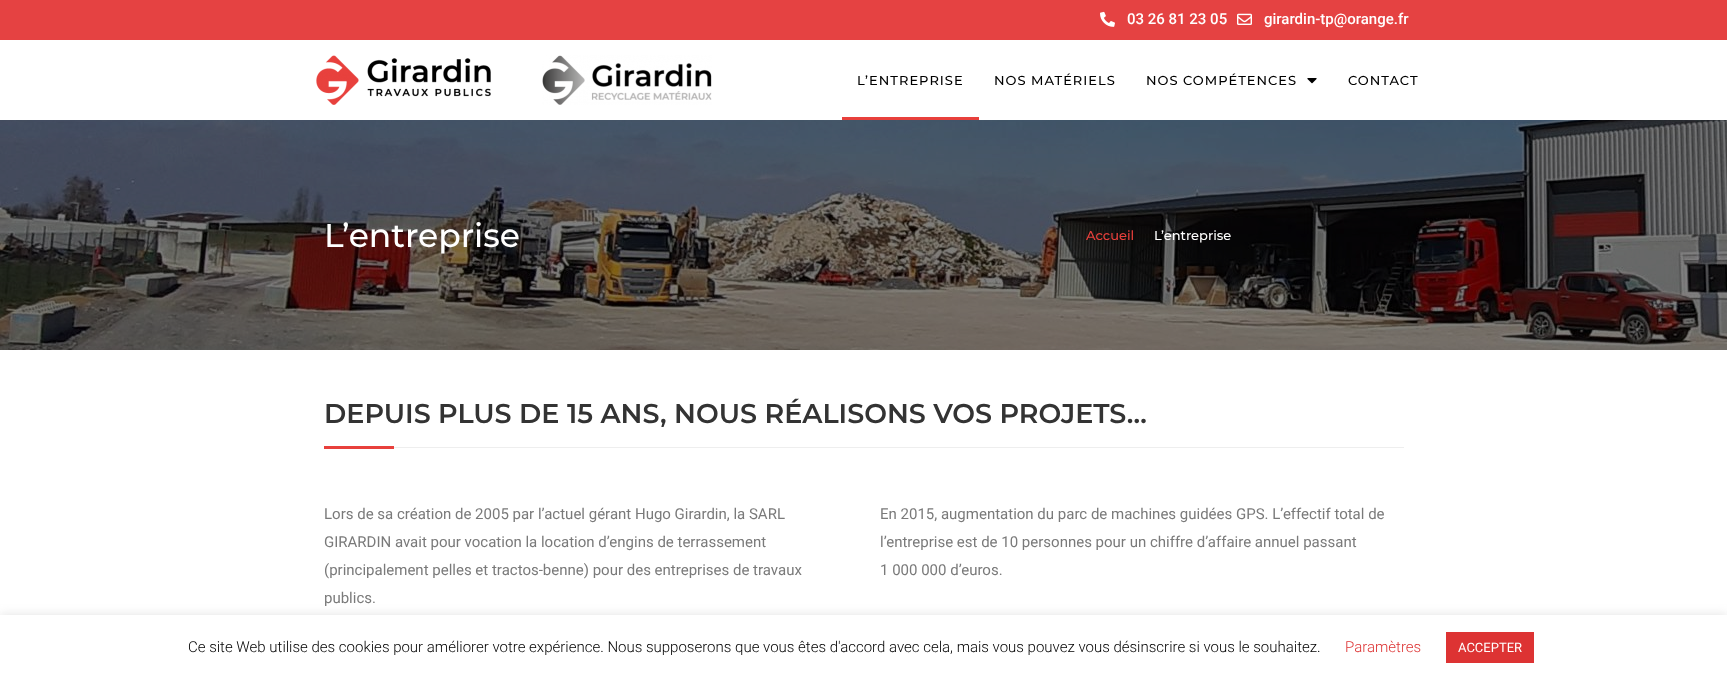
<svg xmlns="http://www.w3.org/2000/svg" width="1727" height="680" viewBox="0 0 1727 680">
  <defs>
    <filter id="blur1" x="-50%" y="-200%" width="200%" height="500%"><feGaussianBlur stdDeviation="5"/></filter>
  </defs>
  <rect width="100%" height="100%" fill="#ffffff"/>
  <rect x="0" y="0" width="1727" height="40" fill="#e54242"/>
  <image x="1100" y="11" width="15" height="16" href="img1.png"/>
  <text x="1127" y="24" font-family="Roboto" font-size="15" font-weight="500" fill="#ffffff">03 26 81 23 05</text>
  <image x="1237" y="13" width="15" height="12" href="img2.png"/>
  <text x="1264" y="24" font-family="Roboto" font-size="15" font-weight="500" fill="#ffffff">girardin-tp@orange.fr</text>
  <image x="316" y="55" width="175" height="50" href="img3.png"/>
  <image x="542" y="55" width="170" height="50" href="img4.png"/>
  <text x="857" y="85" font-family="Montserrat" font-size="13" font-weight="500" letter-spacing="1" fill="#000000">L’ENTREPRISE</text>
  <rect x="842" y="117" width="137" height="3" fill="#e8403c"/>
  <text x="994" y="85" font-family="Montserrat" font-size="13" font-weight="500" letter-spacing="1" fill="#000000">NOS MATÉRIELS</text>
  <text x="1146" y="85" font-family="Montserrat" font-size="13" font-weight="500" letter-spacing="1" fill="#000000">NOS COMPÉTENCES</text>
  <image x="1307" y="78" width="10" height="6" href="img5.png"/>
  <text x="1348" y="85" font-family="Montserrat" font-size="13" font-weight="500" letter-spacing="1" fill="#000000">CONTACT</text>
  <image x="0" y="120" width="1727" height="230" href="img6.png"/>
  <text x="324" y="247" font-family="Montserrat" font-size="33" font-weight="500" fill="#ffffff">L’entreprise</text>
  <text x="1086" y="240" font-family="Montserrat" font-size="13" font-weight="500" fill="#e8403c">Accueil</text>
  <text x="1154" y="240" font-family="Montserrat" font-size="13" font-weight="500" fill="#ffffff">L’entreprise</text>
  <text x="324" y="423" font-family="Montserrat" font-size="27" font-weight="600" fill="#333333">DEPUIS PLUS DE 15 ANS, NOUS RÉALISONS VOS PROJETS…</text>
  <rect x="394" y="447" width="1010" height="1" fill="#eeeeee"/>
  <rect x="324" y="446" width="70" height="3" fill="#e8403c"/>
  <text x="324" y="519" font-family="Roboto" font-size="15" fill="#7a7a7a">Lors de sa création de 2005 par l’actuel gérant Hugo Girardin, la SARL</text>
  <text x="324" y="547" font-family="Roboto" font-size="15" fill="#7a7a7a">GIRARDIN avait pour vocation la location d’engins de terrassement</text>
  <text x="324" y="575" font-family="Roboto" font-size="15" fill="#7a7a7a">(principalement pelles et tractos-benne) pour des entreprises de travaux</text>
  <text x="324" y="603" font-family="Roboto" font-size="15" fill="#7a7a7a">publics.</text>
  <text x="880" y="519" font-family="Roboto" font-size="15" fill="#7a7a7a">En 2015, augmentation du parc de machines guidées GPS. L’effectif total de</text>
  <text x="880" y="547" font-family="Roboto" font-size="15" fill="#7a7a7a">l’entreprise est de 10 personnes pour un chiffre d’affaire annuel passant</text>
  <text x="880" y="575" font-family="Roboto" font-size="15" fill="#7a7a7a">1 000 000 d’euros.</text>
  <rect x="0" y="614" width="1727" height="65" fill="#acabab" fill-opacity="0.3" filter="url(#blur1)"/>
  <rect x="0" y="615" width="1727" height="65" fill="#ffffff"/>
  <text x="188" y="652" font-family="Roboto" font-size="15" font-weight="300" fill="#000000">Ce site Web utilise des cookies pour améliorer votre expérience. Nous supposerons que vous êtes d'accord avec cela, mais vous pouvez vous désinscrire si vous le souhaitez.</text>
  <text x="1345" y="652" font-family="Roboto" font-size="15" font-weight="300" fill="#dd3333">Paramètres</text>
  <rect x="1446" y="632" width="88" height="31" fill="#dd3333"/>
  <text x="1458" y="652" font-family="Roboto" font-size="13" fill="#ffffff">ACCEPTER</text>
</svg>
